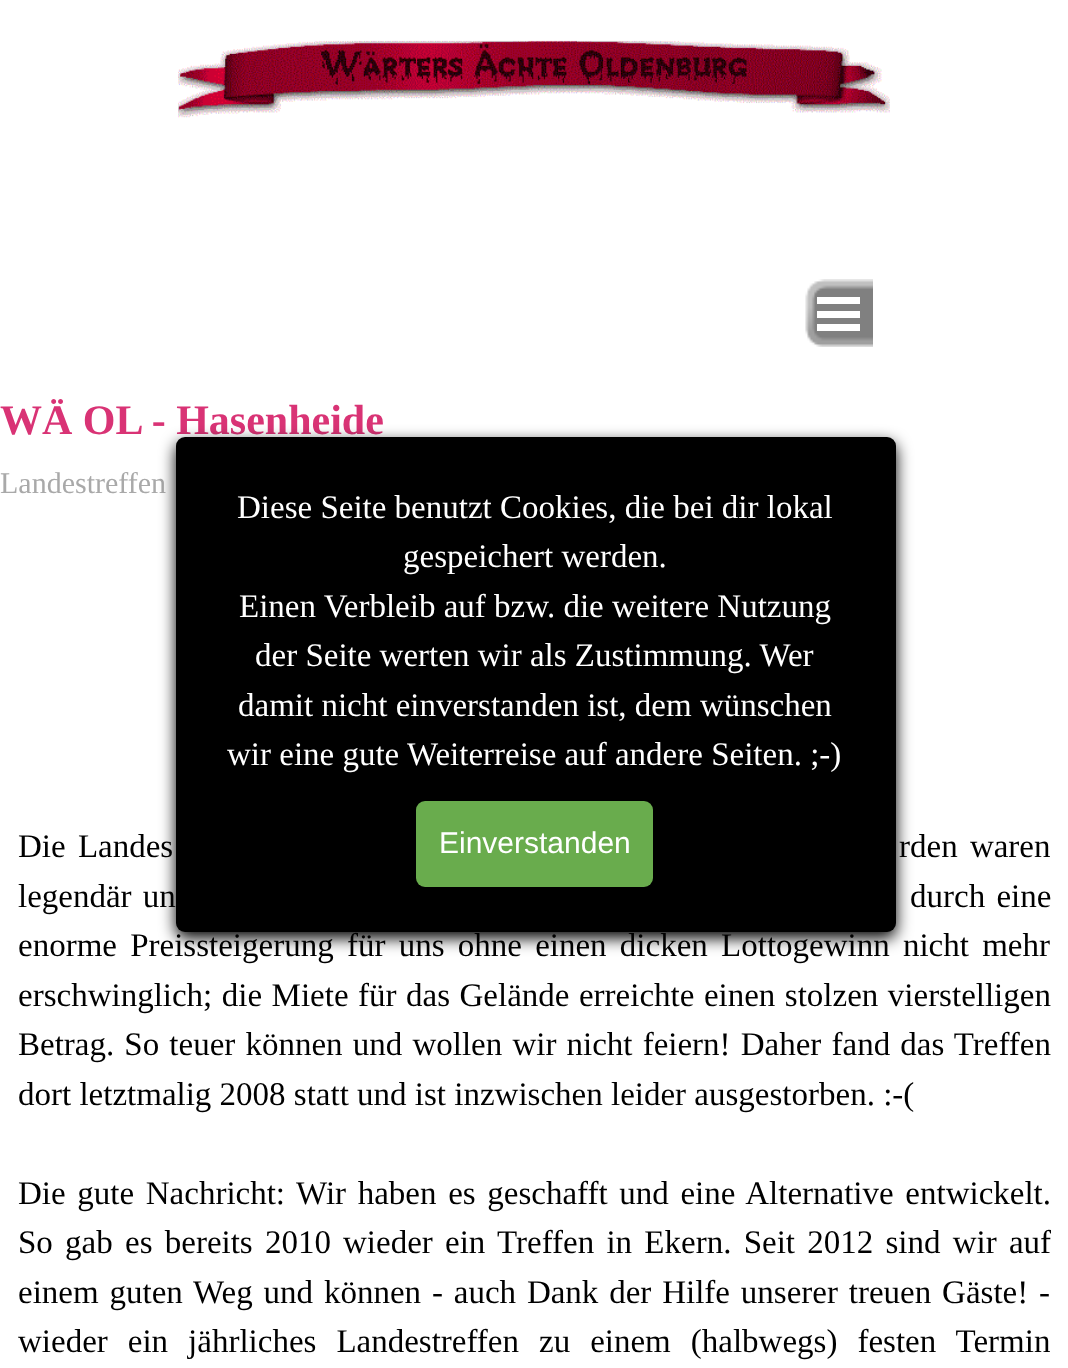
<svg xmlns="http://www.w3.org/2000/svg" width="1068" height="1368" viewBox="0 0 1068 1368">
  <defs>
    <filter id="blur1" x="-50%" y="-200%" width="200%" height="500%"><feGaussianBlur stdDeviation="8"/></filter>
  </defs>
  <rect width="100%" height="100%" fill="#ffffff"/>
  <image x="178" y="40" width="712" height="78" href="img1.png"/>
  <image x="805" y="279" width="68" height="68" href="img2.png"/>
  <rect x="817" y="297" width="43" height="7" fill="#ffffff"/>
  <rect x="817" y="311" width="43" height="7" fill="#ffffff"/>
  <rect x="817" y="324" width="43" height="7" fill="#ffffff"/>
  <text x="0" y="434" font-family="Liberation Serif" font-size="42" font-weight="bold" fill="#d93375">WÄ OL - Hasenheide</text>
  <text x="0" y="493" font-family="Liberation Serif" font-size="30" fill="#a9a9a9">Landestreffen</text>
  <text x="18" y="857" word-spacing="4" font-family="Liberation Serif" font-size="33" fill="#000000">Die Landes</text>
  <text x="899" y="857" word-spacing="4" font-family="Liberation Serif" font-size="33" fill="#000000">rden waren</text>
  <text x="18" y="907" word-spacing="3" font-family="Liberation Serif" font-size="33" fill="#000000">legendär un</text>
  <text x="910" y="907" word-spacing="3" font-family="Liberation Serif" font-size="33" fill="#000000">durch eine</text>
  <text x="18" y="956" word-spacing="5" font-family="Liberation Serif" font-size="33" fill="#000000">enorme Preissteigerung für uns ohne einen dicken Lottogewinn nicht mehr</text>
  <text x="18" y="1006" word-spacing="1.25" font-family="Liberation Serif" font-size="33" fill="#000000">erschwinglich; die Miete für das Gelände erreichte einen stolzen vierstelligen</text>
  <text x="18" y="1055" word-spacing="1.9" font-family="Liberation Serif" font-size="33" fill="#000000">Betrag. So teuer können und wollen wir nicht feiern! Daher fand das Treffen</text>
  <text x="18" y="1105" font-family="Liberation Serif" font-size="33" fill="#000000">dort letztmalig 2008 statt und ist inzwischen leider ausgestorben. :-(</text>
  <text x="18" y="1204" word-spacing="3.4" font-family="Liberation Serif" font-size="33" fill="#000000">Die gute Nachricht: Wir haben es geschafft und eine Alternative entwickelt.</text>
  <text x="18" y="1253" word-spacing="4" font-family="Liberation Serif" font-size="33" fill="#000000">So gab es bereits</text>
  <text x="265" y="1253" font-family="Liberation Serif" font-size="33" fill="#000000">2010</text>
  <text x="343" y="1253" word-spacing="4" font-family="Liberation Serif" font-size="33" fill="#000000">wieder ein Treffen in Ekern. Seit 2012 sind wir auf</text>
  <text x="18" y="1303" word-spacing="2.6" font-family="Liberation Serif" font-size="33" fill="#000000">einem guten Weg und können - auch Dank der Hilfe unserer treuen Gäste! -</text>
  <text x="18" y="1352" word-spacing="11.75" font-family="Liberation Serif" font-size="33" fill="#000000">wieder ein jährliches Landestreffen zu einem (halbwegs) festen Termin</text>
  <rect x="176" y="443" width="720" height="495" rx="9" fill="#000000" filter="url(#blur1)"/>
  <rect x="176" y="437" width="720" height="495" rx="9" fill="#000000"/>
  <text x="237" y="518" font-family="Liberation Serif" font-size="33" fill="#ffffff">Diese Seite benutzt Cookies, die bei dir lokal</text>
  <text x="403" y="567" font-family="Liberation Serif" font-size="33" fill="#ffffff">gespeichert werden.</text>
  <text x="239" y="617" font-family="Liberation Serif" font-size="33" fill="#ffffff">Einen Verbleib auf bzw. die weitere Nutzung</text>
  <text x="255" y="666" font-family="Liberation Serif" font-size="33" fill="#ffffff">der Seite werten wir als Zustimmung. Wer</text>
  <text x="238" y="716" font-family="Liberation Serif" font-size="33" fill="#ffffff">damit nicht einverstanden ist, dem wünschen</text>
  <text x="227" y="765" font-family="Liberation Serif" font-size="33" fill="#ffffff">wir eine gute Weiterreise auf andere Seiten. ;-)</text>
  <rect x="416" y="801" width="237" height="86" rx="9" fill="#69ac4d"/>
  <text x="439" y="853" font-family="Liberation Sans" font-size="30" fill="#ffffff">Einverstanden</text>
</svg>
